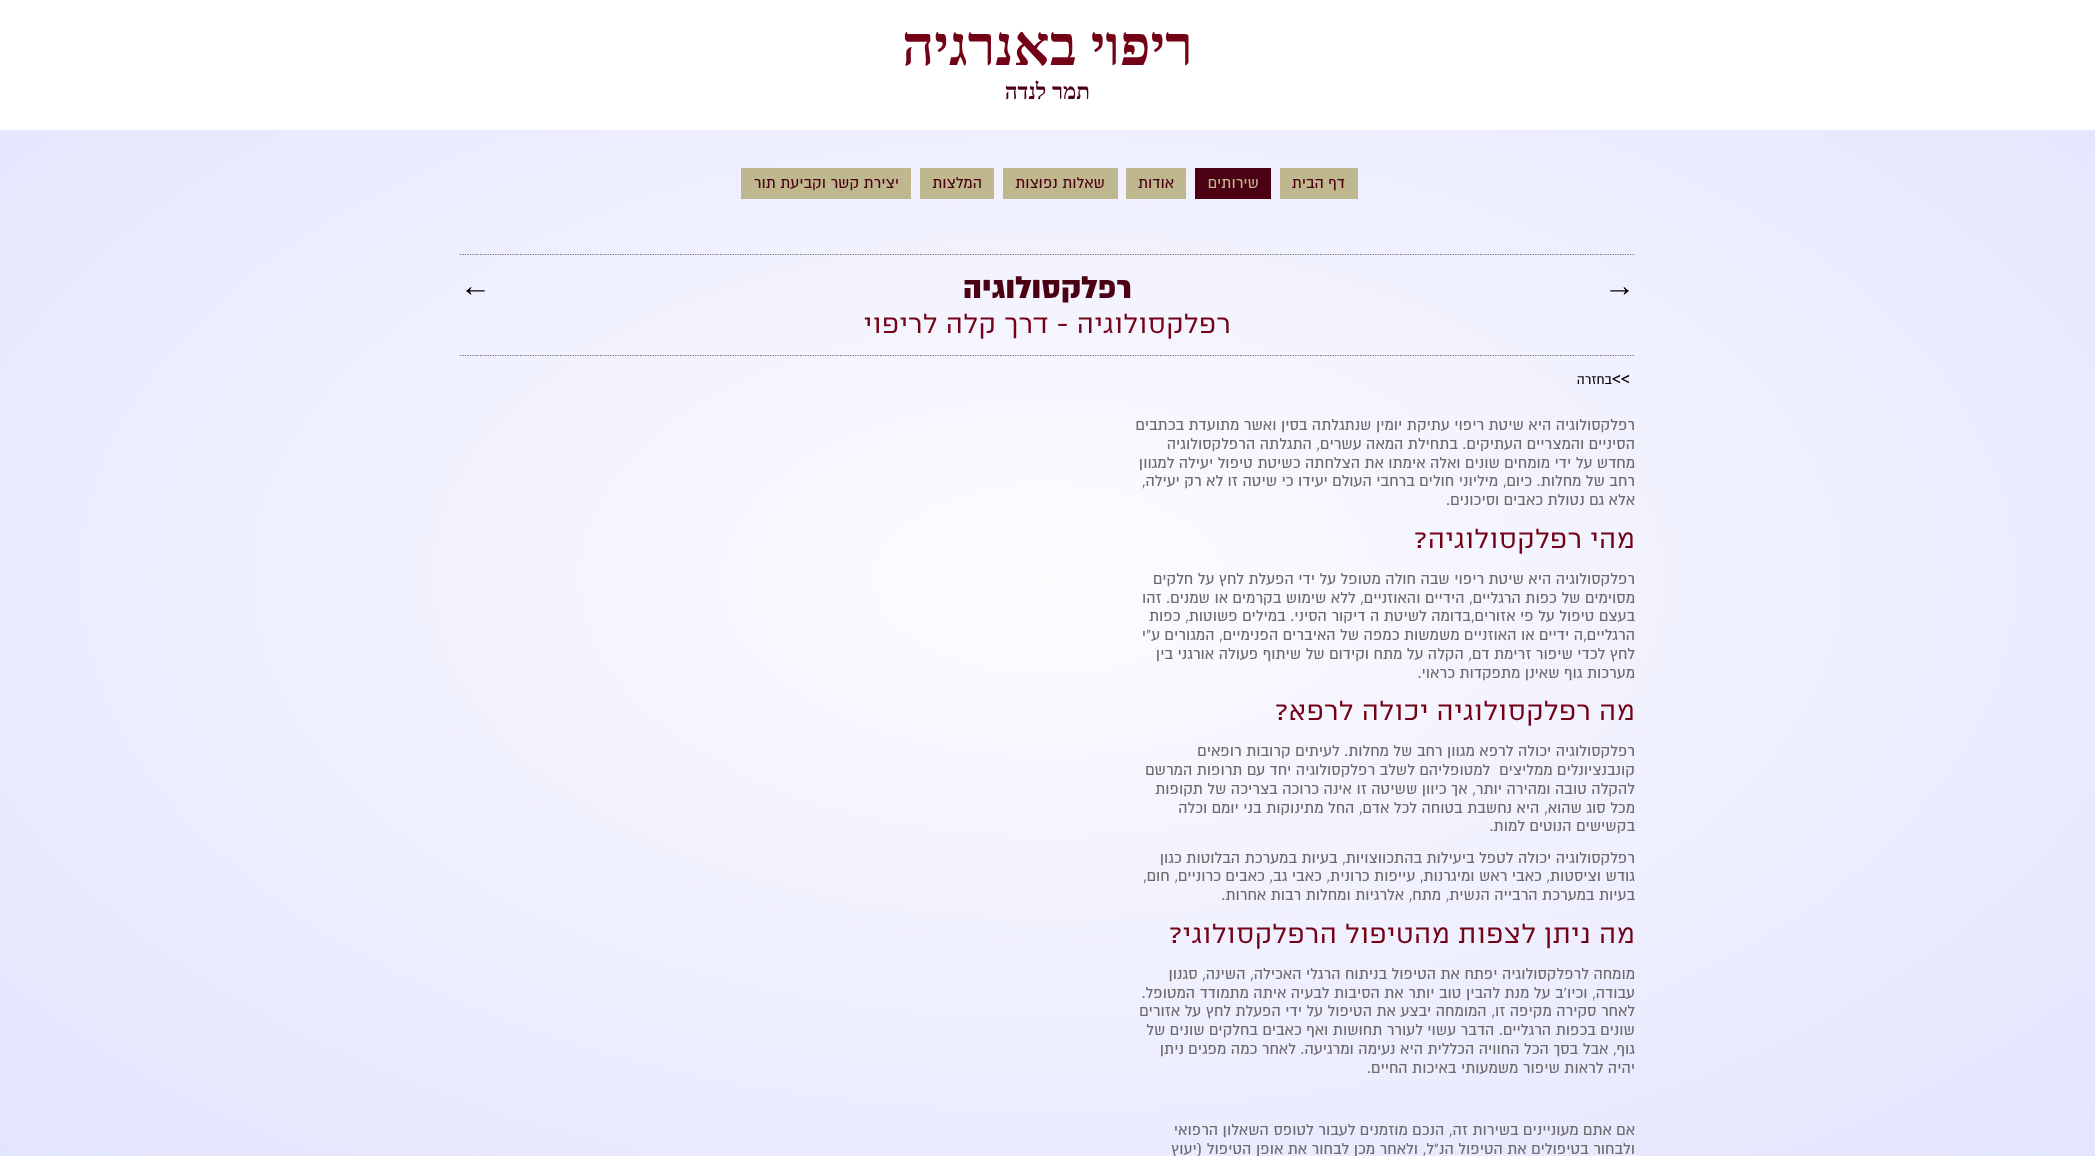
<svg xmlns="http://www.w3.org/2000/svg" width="2095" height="1156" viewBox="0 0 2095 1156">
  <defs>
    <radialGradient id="g1" gradientUnits="userSpaceOnUse" cx="0" cy="0" r="1" gradientTransform="matrix(1778 0 0 981 1048 578)"><stop offset="0" stop-color="#fcfcff"/><stop offset="1" stop-color="#dedffe"/></radialGradient>
  </defs>
  <rect width="100%" height="100%" fill="#ffffff"/>
  <text x="1193" y="65" font-family="Liberation Serif" font-size="56.25" font-weight="bold" direction="rtl" fill="#730217">ריפוי באנרגיה</text>
  <text x="1090" y="99" font-family="Liberation Serif" font-size="22.5" font-weight="bold" direction="rtl" fill="#4c0013">תמר לנדה</text>
  <rect x="0" y="130" width="2095" height="1026" fill="url(#g1)"/>
  <rect x="1280" y="168" width="78" height="31" fill="#bfb78e"/>
  <text x="1345" y="188" font-family="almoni" font-size="17.5" direction="rtl" fill="#4c0013">דף הבית</text>
  <rect x="1195" y="168" width="76" height="31" fill="#4c0013"/>
  <text x="1259" y="188" font-family="almoni" font-size="17.5" direction="rtl" fill="#bfb78e">שירותים</text>
  <rect x="1126" y="168" width="60" height="31" fill="#bfb78e"/>
  <text x="1174" y="188" font-family="almoni" font-size="17.5" direction="rtl" fill="#4c0013">אודות</text>
  <rect x="1003" y="168" width="115" height="31" fill="#bfb78e"/>
  <text x="1105" y="188" font-family="almoni" font-size="17.5" direction="rtl" fill="#4c0013">שאלות נפוצות</text>
  <rect x="920" y="168" width="74" height="31" fill="#bfb78e"/>
  <text x="982" y="188" font-family="almoni" font-size="17.5" direction="rtl" fill="#4c0013">המלצות</text>
  <rect x="741" y="168" width="170" height="31" fill="#bfb78e"/>
  <text x="899" y="188" font-family="almoni" font-size="17.5" direction="rtl" fill="#4c0013">יצירת קשר וקביעת תור</text>
  <path d="M460 254.5H1635" fill="none" stroke="#6b6b6b" stroke-width="1.2" stroke-dasharray="1.25 1.25"/>
  <path d="M460 355.5H1635" fill="none" stroke="#6b6b6b" stroke-width="1.2" stroke-dasharray="1.25 1.25"/>
  <text x="1604" y="296" font-family="Liberation Sans" font-size="31" fill="#000000">→</text>
  <text x="1132" y="298" font-family="almoni" font-size="35" font-weight="900" direction="rtl" fill="#4c0013">רפלקסולוגיה</text>
  <text x="460" y="296" font-family="Liberation Sans" font-size="31" fill="#000000">←</text>
  <text x="1231" y="333" font-family="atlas" font-size="30" direction="rtl" fill="#730217">רפלקסולוגיה - דרך קלה לריפוי</text>
  <text x="1612" y="384" font-family="almoni" font-size="19" fill="#000000">&lt;&lt;</text>
  <text x="1612" y="384" font-family="almoni" font-size="15" direction="rtl" fill="#000000">בחזרה</text>
  <text x="1635" y="430" font-family="almoni" font-size="17.5" direction="rtl" fill="#6b6b6b">רפלקסולוגיה היא שיטת ריפוי עתיקת יומין שנתגלתה בסין ואשר מתועדת בכתבים</text>
  <text x="1635" y="449" font-family="almoni" font-size="17.5" direction="rtl" fill="#6b6b6b">הסיניים והמצריים העתיקים. בתחילת המאה עשרים, התגלתה הרפלקסולוגיה</text>
  <text x="1635" y="468" font-family="almoni" font-size="17.5" direction="rtl" fill="#6b6b6b">מחדש על ידי מומחים שונים ואלה אימתו את הצלחתה כשיטת טיפול יעילה למגוון</text>
  <text x="1635" y="486" font-family="almoni" font-size="17.5" direction="rtl" fill="#6b6b6b">רחב של מחלות. כיום, מיליוני חולים ברחבי העולם יעידו כי שיטה זו לא רק יעילה,</text>
  <text x="1635" y="505" font-family="almoni" font-size="17.5" direction="rtl" fill="#6b6b6b">אלא גם נטולת כאבים וסיכונים.</text>
  <text x="1635" y="548" font-family="atlas" font-size="30" direction="rtl" fill="#730217">מהי רפלקסולוגיה?</text>
  <text x="1635" y="584" font-family="almoni" font-size="17.5" direction="rtl" fill="#6b6b6b">רפלקסולוגיה היא שיטת ריפוי שבה חולה מטופל על ידי הפעלת לחץ על חלקים</text>
  <text x="1635" y="603" font-family="almoni" font-size="17.5" direction="rtl" fill="#6b6b6b">מסוימים של כפות הרגליים, הידיים והאוזניים, ללא שימוש בקרמים או שמנים. זהו</text>
  <text x="1635" y="621" font-family="almoni" font-size="17.5" direction="rtl" fill="#6b6b6b">בעצם טיפול על פי אזורים,בדומה לשיטת ה דיקור הסיני. במילים פשוטות, כפות</text>
  <text x="1635" y="640" font-family="almoni" font-size="17.5" direction="rtl" fill="#6b6b6b">הרגליים,ה ידיים או האוזניים משמשות כמפה של האיברים הפנימיים, המגורים ע"י</text>
  <text x="1635" y="659" font-family="almoni" font-size="17.5" direction="rtl" fill="#6b6b6b">לחץ לכדי שיפור זרימת דם, הקלה על מתח וקידום של שיתוף פעולה אורגני בין</text>
  <text x="1635" y="678" font-family="almoni" font-size="17.5" direction="rtl" fill="#6b6b6b">מערכות גוף שאינן מתפקדות כראוי.</text>
  <text x="1635" y="720" font-family="atlas" font-size="30" direction="rtl" fill="#730217">מה רפלקסולוגיה יכולה לרפא?</text>
  <text x="1635" y="756" font-family="almoni" font-size="17.5" direction="rtl" fill="#6b6b6b">רפלקסולוגיה יכולה לרפא מגוון רחב של מחלות. לעיתים קרובות רופאים</text>
  <text x="1635" y="775" font-family="almoni" font-size="17.5" direction="rtl" fill="#6b6b6b" xml:space="preserve">קונבנציונלים ממליצים  למטופליהם לשלב רפלקסולוגיה יחד עם תרופות המרשם</text>
  <text x="1635" y="794" font-family="almoni" font-size="17.5" direction="rtl" fill="#6b6b6b">להקלה טובה ומהירה יותר, אך כיוון ששיטה זו אינה כרוכה בצריכה של תקופות</text>
  <text x="1635" y="813" font-family="almoni" font-size="17.5" direction="rtl" fill="#6b6b6b">מכל סוג שהוא, היא נחשבת בטוחה לכל אדם, החל מתינוקות בני יומם וכלה</text>
  <text x="1635" y="831" font-family="almoni" font-size="17.5" direction="rtl" fill="#6b6b6b">בקשישים הנוטים למות.</text>
  <text x="1635" y="863" font-family="almoni" font-size="17.5" direction="rtl" fill="#6b6b6b">רפלקסולוגיה יכולה לטפל ביעילות בהתכווצויות, בעיות במערכת הבלוטות כגון</text>
  <text x="1635" y="881" font-family="almoni" font-size="17.5" direction="rtl" fill="#6b6b6b">גודש וציסטות, כאבי ראש ומיגרנות, עייפות כרונית, כאבי גב, כאבים כרוניים, חום,</text>
  <text x="1635" y="900" font-family="almoni" font-size="17.5" direction="rtl" fill="#6b6b6b">בעיות במערכת הרבייה הנשית, מתח, אלרגיות ומחלות רבות אחרות.</text>
  <text x="1635" y="943" font-family="atlas" font-size="30" direction="rtl" fill="#730217">מה ניתן לצפות מהטיפול הרפלקסולוגי?</text>
  <text x="1635" y="979" font-family="almoni" font-size="17.5" direction="rtl" fill="#6b6b6b">מומחה לרפלקסולוגיה יפתח את הטיפול בניתוח הרגלי האכילה, השינה, סגנון</text>
  <text x="1635" y="998" font-family="almoni" font-size="17.5" direction="rtl" fill="#6b6b6b">עבודה, וכיו'ב על מנת להבין טוב יותר את הסיבות לבעיה איתה מתמודד המטופל.</text>
  <text x="1635" y="1016" font-family="almoni" font-size="17.5" direction="rtl" fill="#6b6b6b">לאחר סקירה מקיפה זו, המומחה יבצע את הטיפול על ידי הפעלת לחץ על אזורים</text>
  <text x="1635" y="1035" font-family="almoni" font-size="17.5" direction="rtl" fill="#6b6b6b">שונים בכפות הרגליים. הדבר עשוי לעורר תחושות ואף כאבים בחלקים שונים של</text>
  <text x="1635" y="1054" font-family="almoni" font-size="17.5" direction="rtl" fill="#6b6b6b">גוף, אבל בסך הכל החוויה הכללית היא נעימה ומרגיעה. לאחר כמה מפגים ניתן</text>
  <text x="1635" y="1073" font-family="almoni" font-size="17.5" direction="rtl" fill="#6b6b6b">יהיה לראות שיפור משמעותי באיכות החיים.</text>
  <text x="1635" y="1135" font-family="almoni" font-size="17.5" direction="rtl" fill="#6b6b6b">אם אתם מעוניינים בשירות זה, הנכם מוזמנים לעבור לטופס השאלון הרפואי</text>
  <text x="1635" y="1154" font-family="almoni" font-size="17.5" direction="rtl" fill="#6b6b6b">ולבחור בטיפולים את הטיפול הנ"ל, ולאחר מכן לבחור את אופן הטיפול (יעוץ</text>
</svg>
